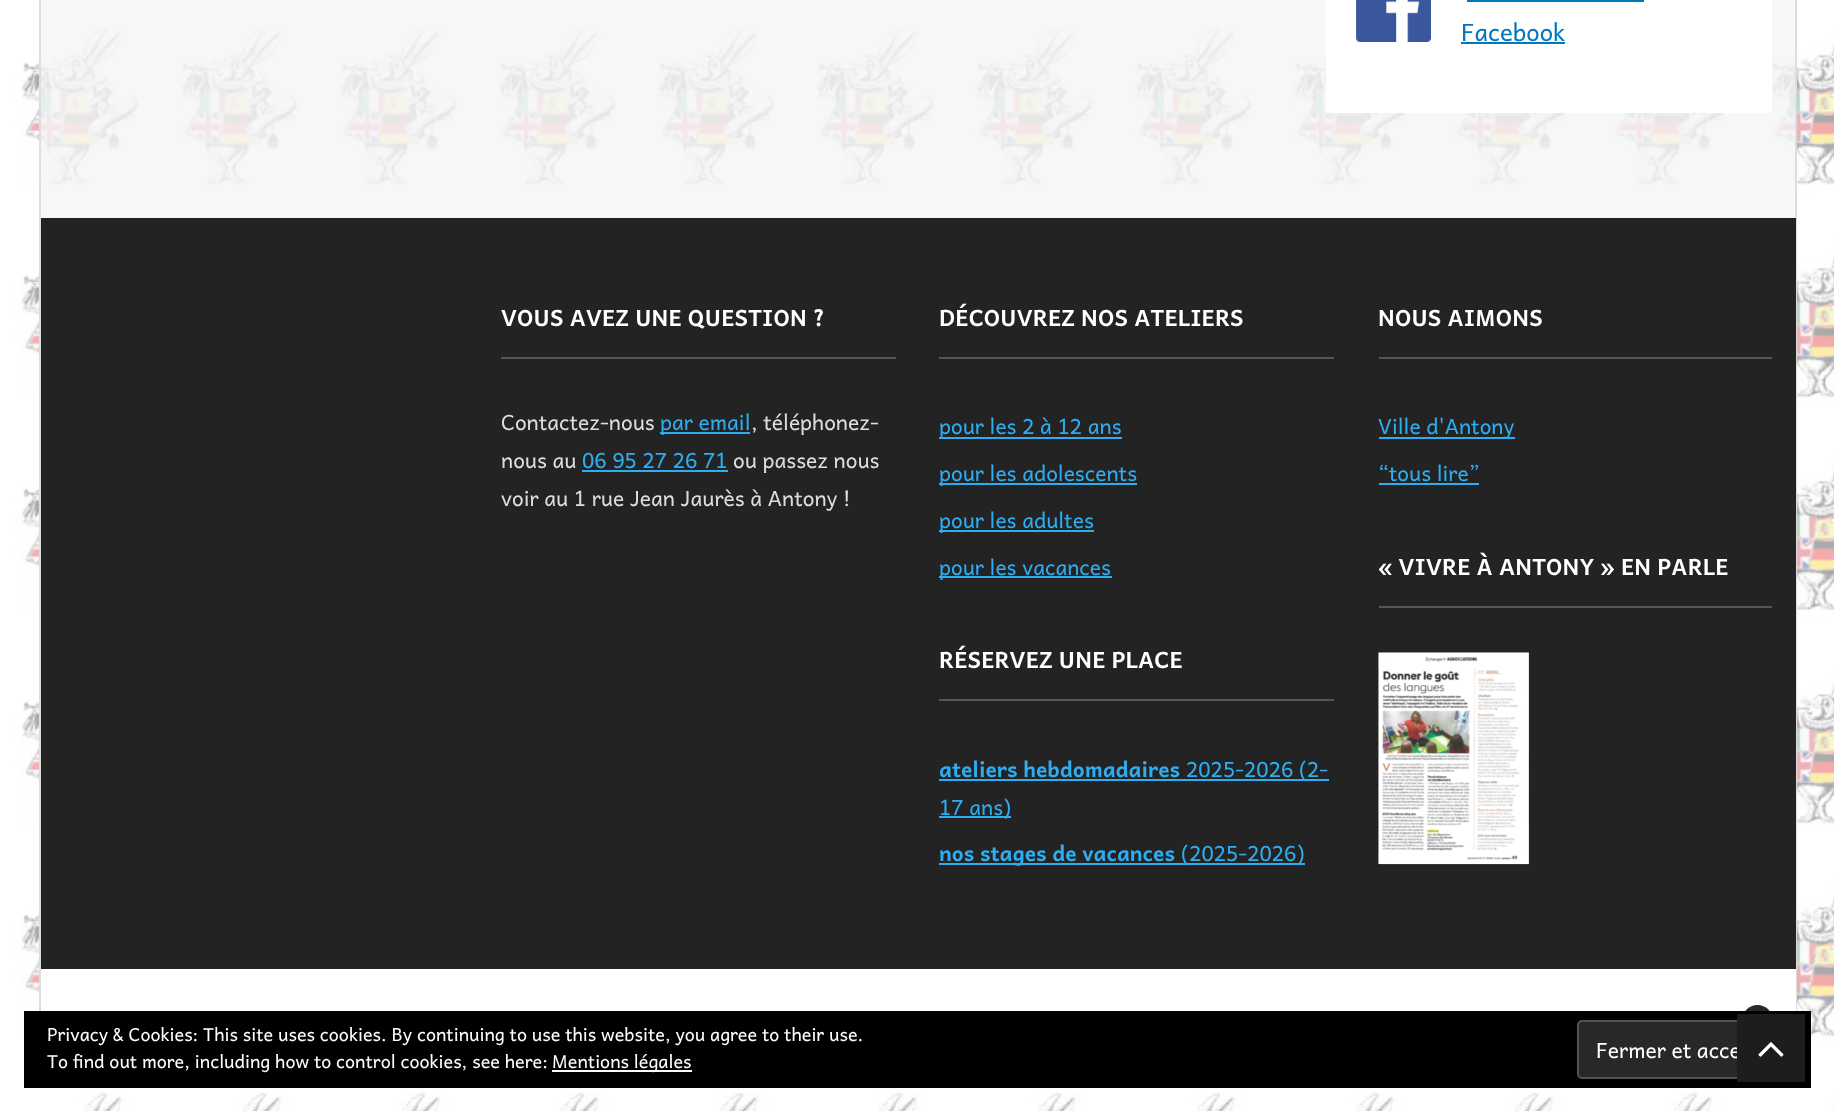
<svg xmlns="http://www.w3.org/2000/svg" width="1834" height="1111" viewBox="0 0 1834 1111">
  <rect width="100%" height="100%" fill="#ffffff"/>
  <image x="0" y="0" width="1834" height="1111" href="img1.png"/>
  <rect x="40" y="-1" width="1756" height="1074" fill="none" stroke="#dddddd" stroke-width="2"/>
  <rect x="1326" y="0" width="446" height="113" fill="#ffffff"/>
  <image x="1356" y="0" width="75" height="42" href="img2.png"/>
  <text x="1461" y="41" font-family="Andika" font-size="24" fill="#0077be">Facebook</text>
  <rect x="1467" y="0" width="177" height="2" fill="#0077be"/>
  <rect x="1461" y="42" width="104" height="2" fill="#0077be"/>
  <rect x="41" y="218" width="1755" height="751" fill="#232323"/>
  <rect x="501" y="357" width="395" height="2" fill="#565656"/>
  <text x="501" y="326" font-family="Andika" font-size="22.5" font-weight="bold" fill="#ffffff">VOUS AVEZ UNE QUESTION ?</text>
  <text x="501" y="430" font-family="Andika" font-size="21" fill="#dddddd">Contactez-nous</text>
  <rect x="660" y="432" width="90" height="2" fill="#2eadf1"/>
  <text x="660" y="430" font-family="Andika" font-size="21" fill="#2eadf1">par email</text>
  <text x="751" y="430" font-family="Andika" font-size="21" fill="#dddddd">, téléphonez-</text>
  <text x="501" y="468" font-family="Andika" font-size="21" fill="#dddddd">nous au</text>
  <text x="582" y="468" font-family="Andika" font-size="21" fill="#2eadf1">06 95 27 26 71</text>
  <rect x="582" y="470" width="146" height="2" fill="#2eadf1"/>
  <text x="733" y="468" font-family="Andika" font-size="21" fill="#dddddd">ou passez nous</text>
  <text x="501" y="506" font-family="Andika" font-size="21" fill="#dddddd">voir au 1 rue Jean Jaurès à Antony !</text>
  <rect x="939" y="357" width="395" height="2" fill="#565656"/>
  <text x="939" y="326" font-family="Andika" font-size="22.5" font-weight="bold" fill="#ffffff">DÉCOUVREZ NOS ATELIERS</text>
  <rect x="939" y="437" width="183" height="2" fill="#2eadf1"/>
  <text x="939" y="434" font-family="Andika" font-size="21" fill="#2eadf1">pour les 2 à 12 ans</text>
  <rect x="939" y="483" width="198" height="2" fill="#2eadf1"/>
  <text x="939" y="481" font-family="Andika" font-size="21" fill="#2eadf1">pour les adolescents</text>
  <rect x="939" y="530" width="155" height="2" fill="#2eadf1"/>
  <text x="939" y="528" font-family="Andika" font-size="21" fill="#2eadf1">pour les adultes</text>
  <rect x="939" y="576" width="173" height="2" fill="#2eadf1"/>
  <text x="939" y="575" font-family="Andika" font-size="21" fill="#2eadf1">pour les vacances</text>
  <rect x="939" y="699" width="395" height="2" fill="#565656"/>
  <text x="939" y="668" font-family="Andika" font-size="22.5" font-weight="bold" fill="#ffffff">RÉSERVEZ UNE PLACE</text>
  <text x="939" y="777" font-family="Andika" font-size="21" font-weight="bold" fill="#2eadf1">ateliers hebdomadaires</text>
  <rect x="939" y="779" width="390" height="2" fill="#2eadf1"/>
  <text x="1186" y="777" font-family="Andika" font-size="21" fill="#2eadf1">2025-2026 (2-</text>
  <rect x="939" y="816" width="72" height="2" fill="#2eadf1"/>
  <text x="939" y="815" font-family="Andika" font-size="21" fill="#2eadf1">17 ans)</text>
  <rect x="939" y="863" width="366" height="2" fill="#2eadf1"/>
  <text x="939" y="861" font-family="Andika" font-size="21" font-weight="bold" fill="#2eadf1">nos stages de vacances</text>
  <text x="1181" y="861" font-family="Andika" font-size="21" fill="#2eadf1">(2025-2026)</text>
  <rect x="1379" y="357" width="393" height="2" fill="#565656"/>
  <text x="1378" y="326" font-family="Andika" font-size="22.5" font-weight="bold" fill="#ffffff">NOUS AIMONS</text>
  <rect x="1379" y="437" width="136" height="2" fill="#2eadf1"/>
  <text x="1378" y="434" font-family="Andika" font-size="21" fill="#2eadf1">Ville d'Antony</text>
  <text x="1378" y="481" font-family="Andika" font-size="21" fill="#2eadf1">“tous lire”</text>
  <rect x="1379" y="483" width="100" height="2" fill="#2eadf1"/>
  <rect x="1379" y="606" width="393" height="2" fill="#565656"/>
  <text x="1378" y="575" font-family="Andika" font-size="22.5" font-weight="bold" fill="#ffffff">« VIVRE À ANTONY » EN PARLE</text>
  <image x="1378" y="652" width="151" height="213" href="img3.png"/>
  <rect x="41" y="969" width="1755" height="42" fill="#ffffff"/>
  <rect x="1742" y="1005" width="31" height="32" rx="15.5" fill="#292929"/>
  <rect x="24" y="1011" width="1787" height="77" fill="#000000"/>
  <text x="47" y="1041" font-family="Andika" font-size="18" fill="#ffffff">Privacy &amp; Cookies: This site uses cookies. By continuing to use this website, you agree to their use.</text>
  <rect x="1578" y="1021" width="223" height="57" rx="4" fill="#282828" stroke="#535353" stroke-width="2"/>
  <text x="1596" y="1058" font-family="Andika" font-size="21" fill="#ffffff">Fermer et acce</text>
  <text x="47" y="1068" font-family="Andika" font-size="18" fill="#ffffff">To find out more, including how to control cookies, see here:</text>
  <rect x="552" y="1070" width="140" height="2" fill="#ffffff"/>
  <text x="552" y="1068" font-family="Andika" font-size="18" fill="#ffffff">Mentions légales</text>
  <rect x="1737" y="1014" width="68" height="68" fill="#1d1d1f"/>
  <image x="1758" y="1042" width="26" height="15" href="img4.png"/>
</svg>
